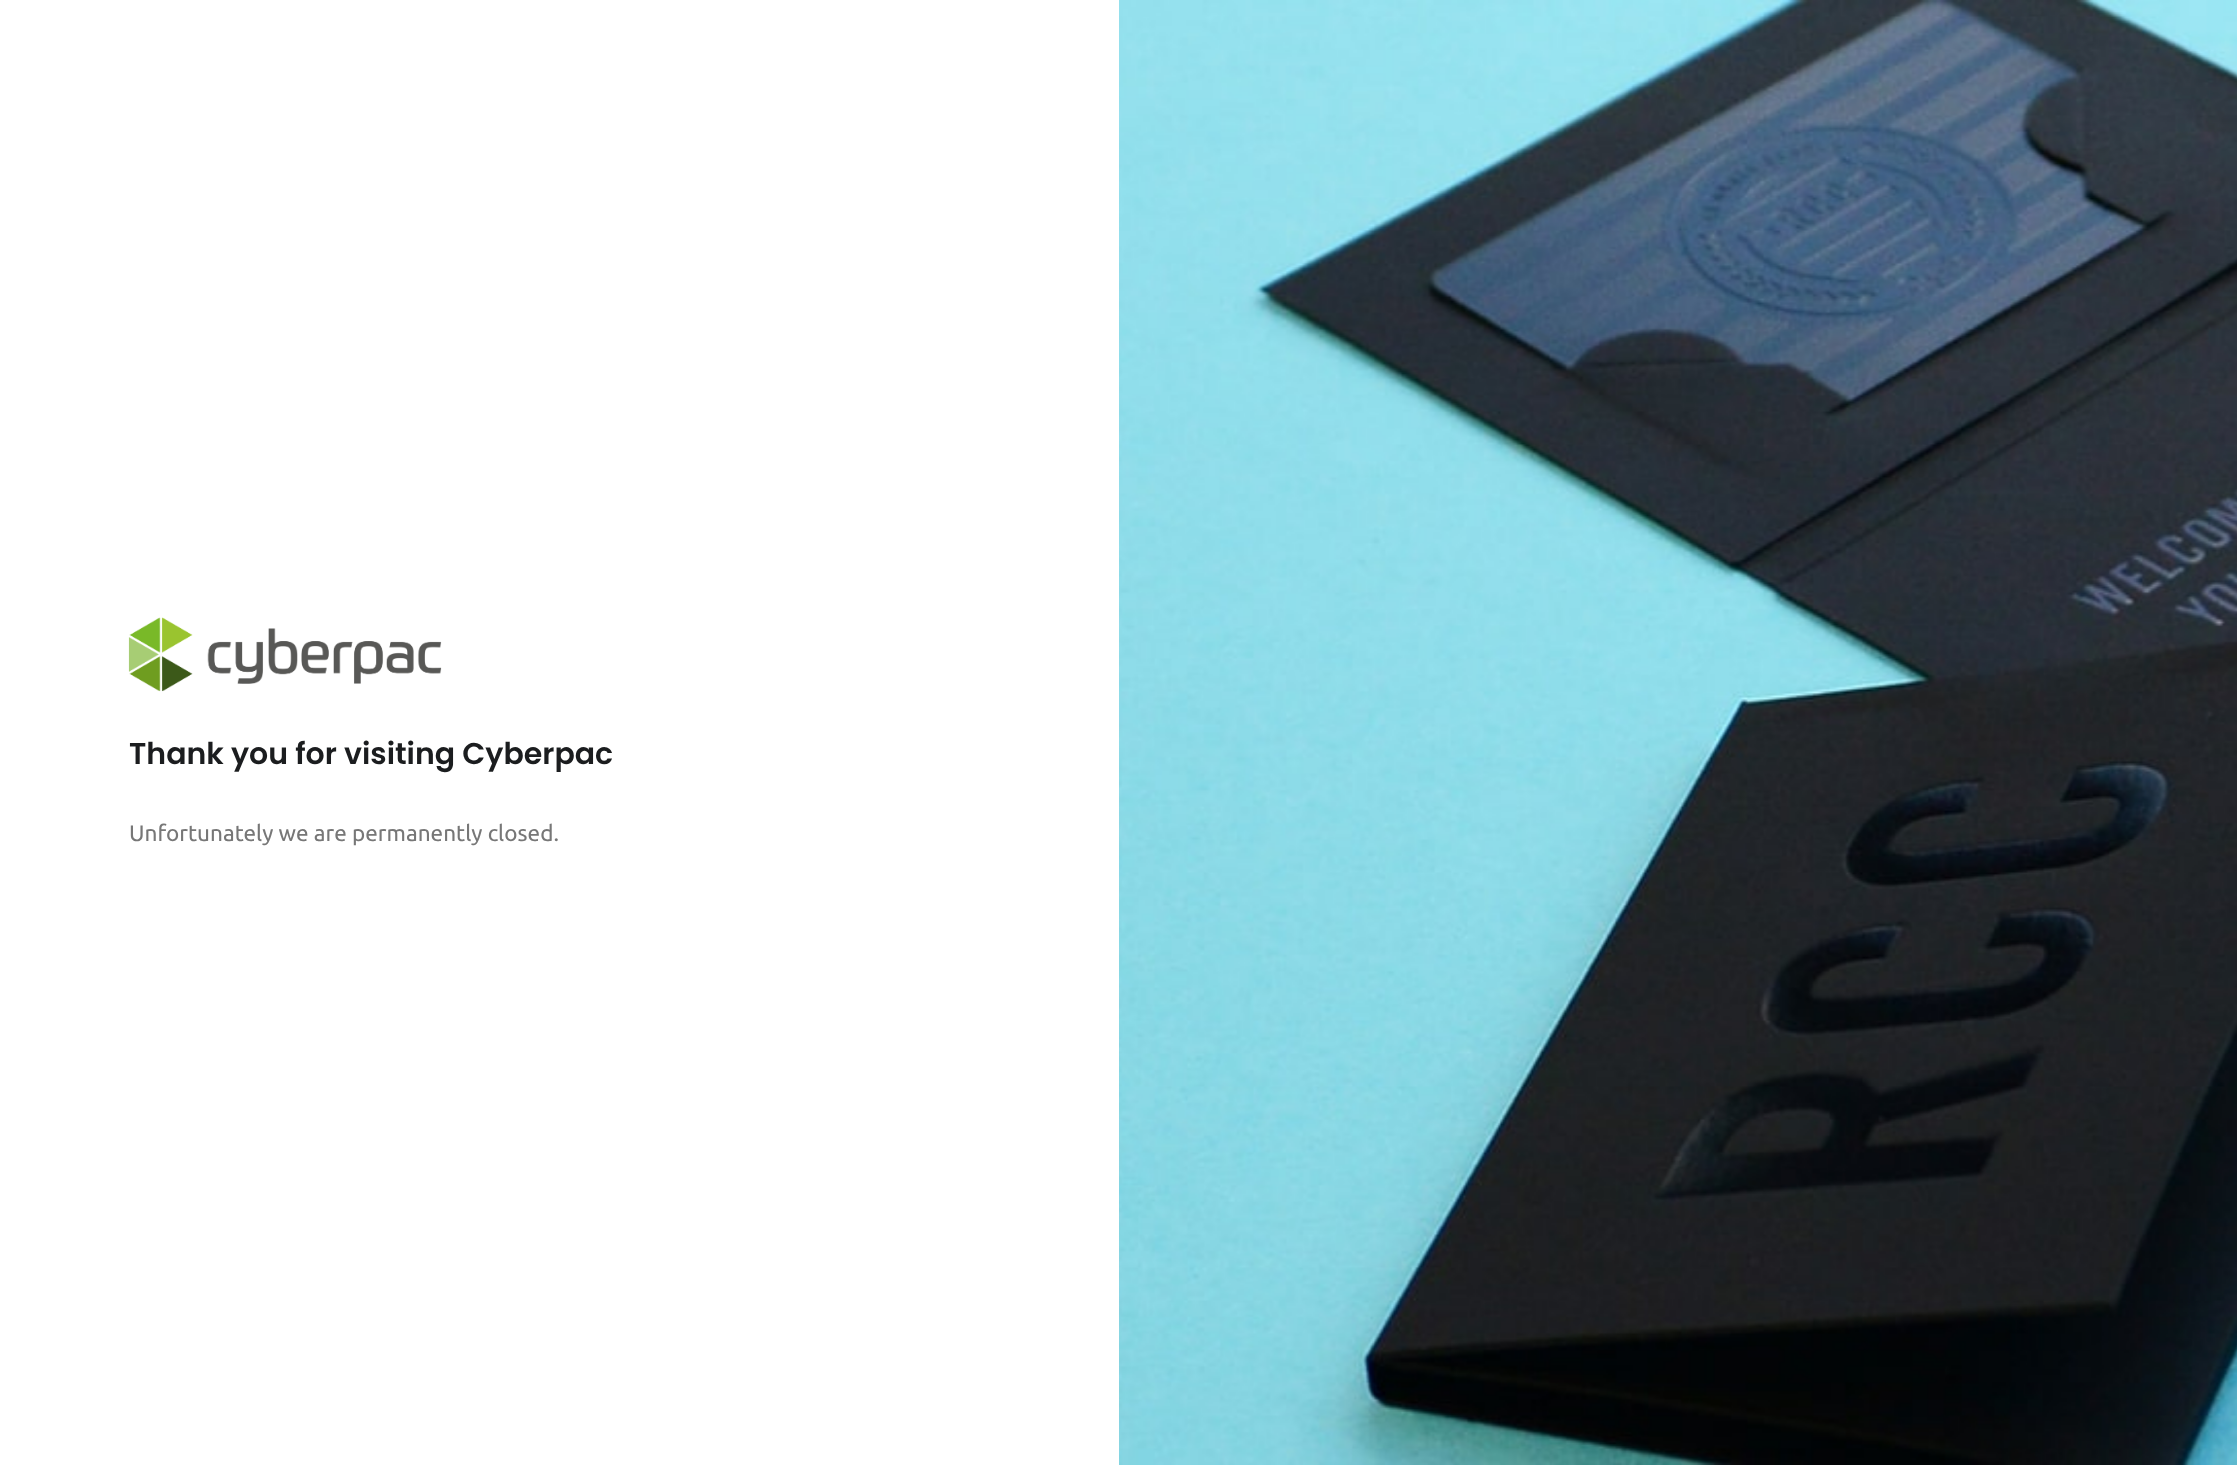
<svg xmlns="http://www.w3.org/2000/svg" width="2237" height="1465" viewBox="0 0 2237 1465">
  <rect width="100%" height="100%" fill="#ffffff"/>
  <image x="128" y="617" width="314" height="75" href="img1.png"/>
  <text x="129" y="764" font-family="Poppins" font-size="30" font-weight="600" fill="#1b1d1f">Thank you for visiting Cyberpac</text>
  <text x="129" y="841" font-family="Ubuntu" font-size="22.5" fill="#777777">Unfortunately we are permanently closed.</text>
  <image x="1119" y="0" width="1118" height="1465" href="img2.png"/>
</svg>
